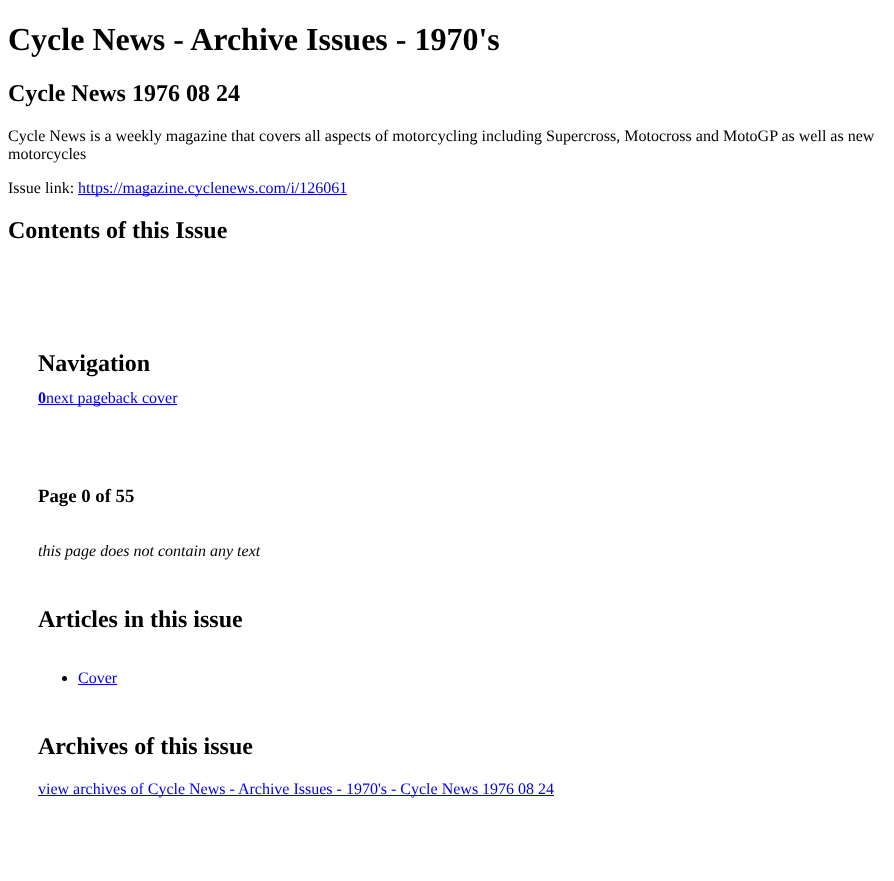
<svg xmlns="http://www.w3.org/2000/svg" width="894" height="881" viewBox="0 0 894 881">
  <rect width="100%" height="100%" fill="#ffffff"/>
  <text x="8" y="50" font-family="Liberation Serif" font-size="32" font-weight="bold" fill="#000000">Cycle News - Archive Issues - 1970's</text>
  <text x="8" y="101" font-family="Liberation Serif" font-size="24" font-weight="bold" fill="#000000">Cycle News 1976 08 24</text>
  <text x="8" y="141" font-family="Liberation Serif" font-size="16" fill="#000000">Cycle News is a weekly magazine that covers all aspects of motorcycling including Supercross, Motocross and MotoGP as well as new</text>
  <text x="8" y="159" font-family="Liberation Serif" font-size="16" fill="#000000">motorcycles</text>
  <text x="8" y="193" font-family="Liberation Serif" font-size="16" fill="#000000">Issue link:</text>
  <rect x="78" y="194" width="269" height="1" fill="#0000ee"/>
  <text x="78" y="193" font-family="Liberation Serif" font-size="16" fill="#0000ee">https://magazine.cyclenews.com/i/126061</text>
  <text x="8" y="238" font-family="Liberation Serif" font-size="24" font-weight="bold" fill="#000000">Contents of this Issue</text>
  <text x="38" y="371" font-family="Liberation Serif" font-size="24" font-weight="bold" fill="#000000">Navigation</text>
  <text x="38" y="403" font-family="Liberation Serif" font-size="16" font-weight="bold" fill="#0000ee">0</text>
  <rect x="38" y="404" width="139" height="1" fill="#0000ee"/>
  <text x="46" y="403" font-family="Liberation Serif" font-size="16" fill="#0000ee">next pageback cover</text>
  <text x="38" y="502" font-family="Liberation Serif" font-size="18.75" font-weight="bold" fill="#000000">Page 0 of 55</text>
  <text x="38" y="556" font-family="Liberation Serif" font-size="16" font-style="italic" fill="#000000">this page does not contain any text</text>
  <text x="38" y="627" font-family="Liberation Serif" font-size="24" font-weight="bold" fill="#000000">Articles in this issue</text>
  <circle cx="64.5" cy="678.5" r="2.5" fill="#000000"/>
  <text x="78" y="683" font-family="Liberation Serif" font-size="16" fill="#0000ee">Cover</text>
  <rect x="78" y="684" width="39" height="1" fill="#0000ee"/>
  <text x="38" y="754" font-family="Liberation Serif" font-size="24" font-weight="bold" fill="#000000">Archives of this issue</text>
  <rect x="38" y="795" width="516" height="1" fill="#0000ee"/>
  <text x="38" y="794" font-family="Liberation Serif" font-size="16" fill="#0000ee">view archives of Cycle News - Archive Issues - 1970's - Cycle News 1976 08 24</text>
</svg>
